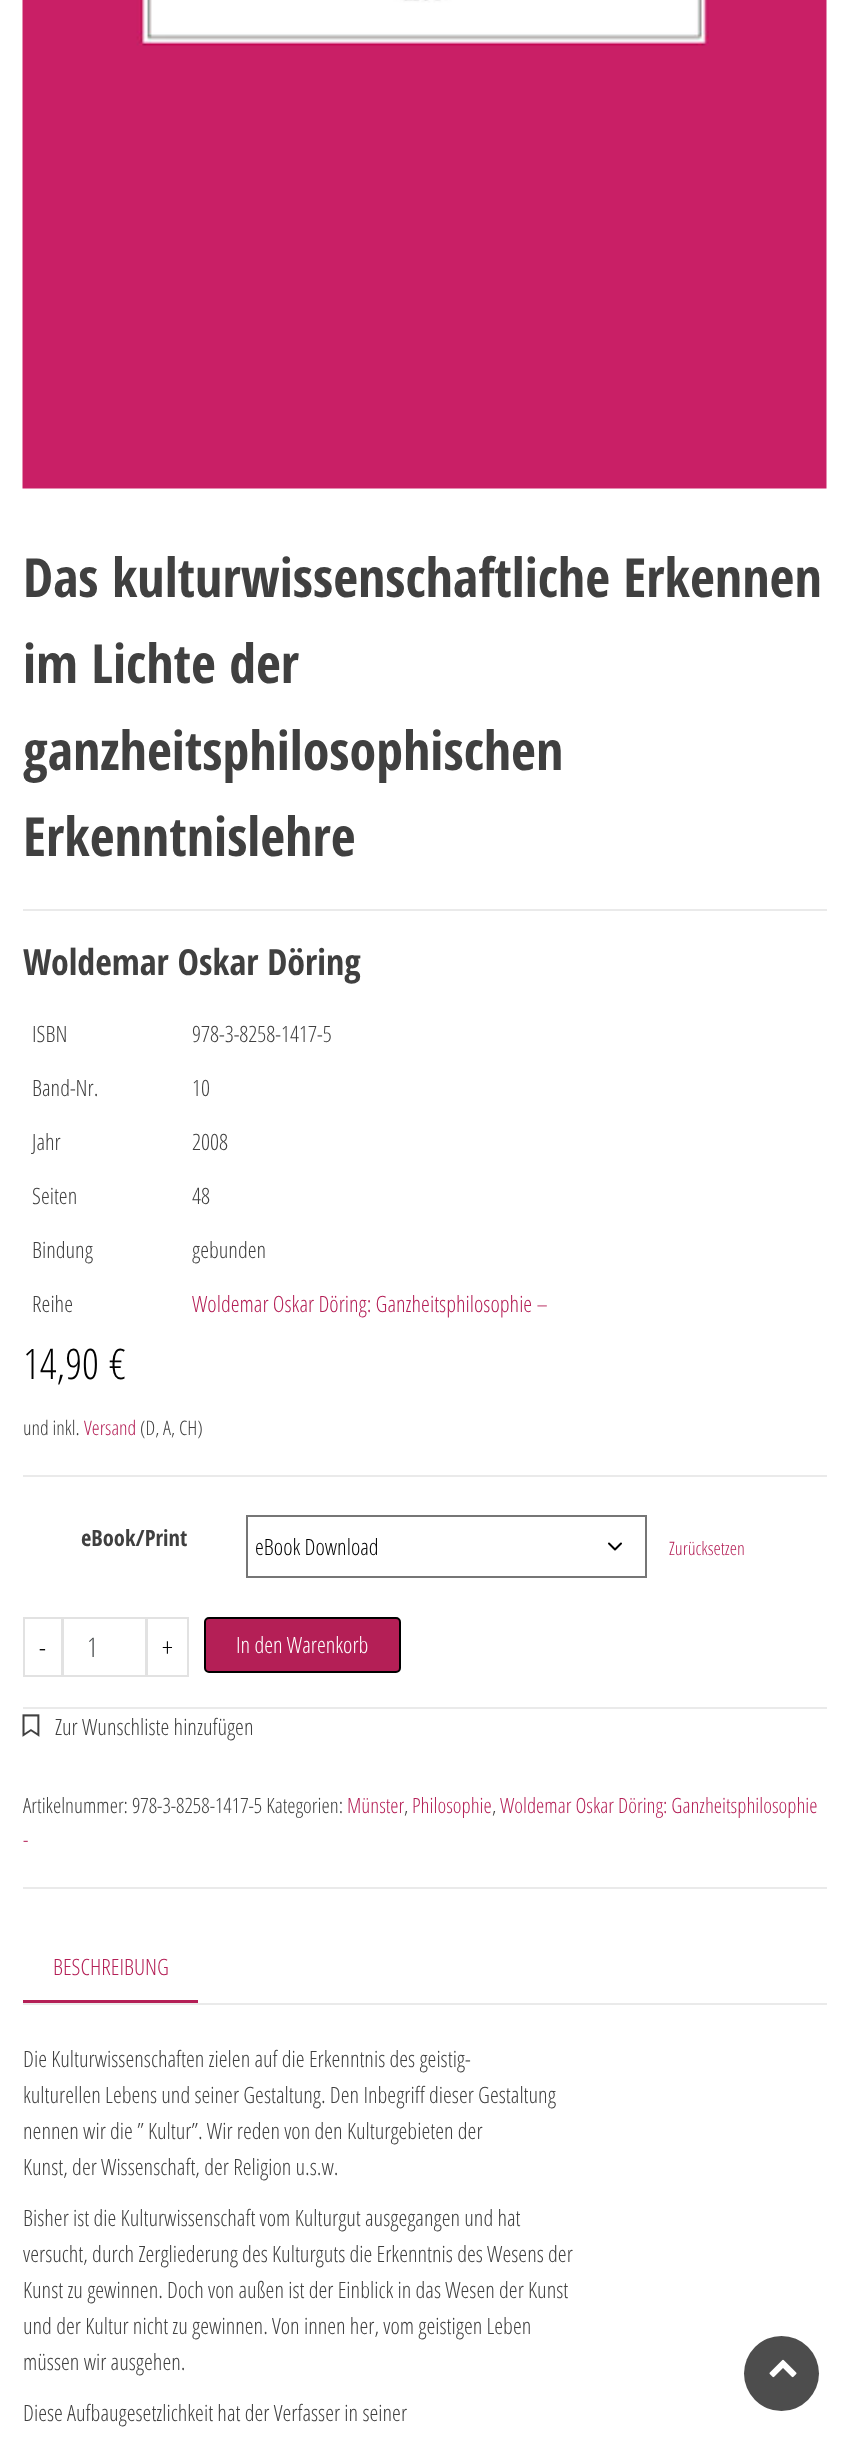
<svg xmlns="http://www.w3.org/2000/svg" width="849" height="2440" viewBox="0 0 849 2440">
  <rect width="100%" height="100%" fill="#ffffff"/>
  <image x="22" y="0" width="805" height="489" href="img1.png"/>
  <rect x="23" y="909" width="804" height="2" fill="#eaeaea"/>
  <text x="23" y="597" font-family="Open Sans Condensed" font-size="54" font-weight="bold" fill="#404040">Das kulturwissenschaftliche Erkennen</text>
  <text x="23" y="683" font-family="Open Sans Condensed" font-size="54" font-weight="bold" fill="#404040">im Lichte der</text>
  <text x="23" y="770" font-family="Open Sans Condensed" font-size="54" font-weight="bold" fill="#404040">ganzheitsphilosophischen</text>
  <text x="23" y="856" font-family="Open Sans Condensed" font-size="54" font-weight="bold" fill="#404040">Erkenntnislehre</text>
  <text x="23" y="975" font-family="Open Sans Condensed" font-size="36" font-weight="bold" fill="#404040">Woldemar Oskar Döring</text>
  <text x="32" y="1042" font-family="Open Sans Condensed" font-size="22.5" font-weight="300" fill="#404040">ISBN</text>
  <text x="192" y="1042" font-family="Open Sans Condensed" font-size="22.5" font-weight="300" fill="#404040">978-3-8258-1417-5</text>
  <text x="32" y="1096" font-family="Open Sans Condensed" font-size="22.5" font-weight="300" fill="#404040">Band-Nr.</text>
  <text x="192" y="1096" font-family="Open Sans Condensed" font-size="22.5" font-weight="300" fill="#404040">10</text>
  <text x="32" y="1150" font-family="Open Sans Condensed" font-size="22.5" font-weight="300" fill="#404040">Jahr</text>
  <text x="192" y="1150" font-family="Open Sans Condensed" font-size="22.5" font-weight="300" fill="#404040">2008</text>
  <text x="32" y="1204" font-family="Open Sans Condensed" font-size="22.5" font-weight="300" fill="#404040">Seiten</text>
  <text x="192" y="1204" font-family="Open Sans Condensed" font-size="22.5" font-weight="300" fill="#404040">48</text>
  <text x="32" y="1258" font-family="Open Sans Condensed" font-size="22.5" font-weight="300" fill="#404040">Bindung</text>
  <text x="192" y="1258" font-family="Open Sans Condensed" font-size="22.5" font-weight="300" fill="#404040">gebunden</text>
  <text x="32" y="1312" font-family="Open Sans Condensed" font-size="22.5" font-weight="300" fill="#404040">Reihe</text>
  <text x="192" y="1312" font-family="Open Sans Condensed" font-size="22.5" font-weight="300" fill="#b41f56">Woldemar Oskar Döring: Ganzheitsphilosophie –</text>
  <text x="23" y="1379" font-family="Open Sans Condensed" font-size="42" font-weight="300" fill="#000000">14,90</text>
  <text x="109" y="1379" font-family="Open Sans Condensed" font-size="42" font-weight="300" fill="#000000">€</text>
  <text x="23" y="1435" font-family="Open Sans Condensed" font-size="20" font-weight="300" fill="#404040">und inkl.</text>
  <text x="84" y="1435" font-family="Open Sans Condensed" font-size="20" font-weight="300" fill="#b41f56">Versand</text>
  <text x="140" y="1435" font-family="Open Sans Condensed" font-size="20" font-weight="300" fill="#404040">(D, A, CH)</text>
  <rect x="23" y="1475" width="804" height="2" fill="#eaeaea"/>
  <rect x="23" y="1707" width="804" height="2" fill="#eaeaea"/>
  <text x="81" y="1546" font-family="Open Sans Condensed" font-size="22.5" font-weight="bold" fill="#404040">eBook/Print</text>
  <path d="M609 1543.5L615 1549.5L621 1543.5" fill="none" stroke="#000000" stroke-width="2" stroke-linecap="round" stroke-linejoin="round"/>
  <rect x="247" y="1516" width="399" height="61" fill="none" stroke="#767676" stroke-width="2"/>
  <text x="255" y="1555" font-family="Open Sans Condensed" font-size="22.5" font-weight="300" fill="#000000">eBook Download</text>
  <text x="669" y="1555" font-family="Open Sans Condensed" font-size="18.5" font-weight="300" fill="#b41f56">Zurücksetzen</text>
  <rect x="24" y="1618" width="38" height="58" fill="none" stroke="#e2e2e2" stroke-width="2"/>
  <text x="39" y="1657" font-family="Open Sans Condensed" font-size="27" font-weight="300" fill="#000000">-</text>
  <rect x="63" y="1618" width="83" height="58" fill="none" stroke="#e2e2e2" stroke-width="2"/>
  <text x="87" y="1657" font-family="Open Sans Condensed" font-size="27" font-weight="300" fill="#464a4c">1</text>
  <rect x="147" y="1618" width="41" height="58" fill="none" stroke="#e2e2e2" stroke-width="2"/>
  <text x="162" y="1657" font-family="Open Sans Condensed" font-size="27" font-weight="300" fill="#000000">+</text>
  <rect x="205" y="1618" width="195" height="54" rx="4" fill="#b41f56" stroke="#000000" stroke-width="2"/>
  <text x="236" y="1653" font-family="Open Sans Condensed" font-size="22.5" font-weight="300" fill="#ffffff">In den Warenkorb</text>
  <image x="22" y="1714" width="18" height="23" href="img2.png"/>
  <text x="55" y="1735" font-family="Open Sans Condensed" font-size="22.5" font-weight="300" fill="#404040">Zur Wunschliste hinzufügen</text>
  <rect x="23" y="1887" width="804" height="2" fill="#eaeaea"/>
  <text x="23" y="1813" font-family="Open Sans Condensed" font-size="21" font-weight="300" fill="#404040">Artikelnummer: 978-3-8258-1417-5 Kategorien:</text>
  <text x="347" y="1813" font-family="Open Sans Condensed" font-size="21" font-weight="300" fill="#b41f56">Münster</text>
  <text x="404" y="1813" font-family="Open Sans Condensed" font-size="21" font-weight="300" fill="#404040">,</text>
  <text x="412" y="1813" font-family="Open Sans Condensed" font-size="21" font-weight="300" fill="#b41f56">Philosophie</text>
  <text x="492" y="1813" font-family="Open Sans Condensed" font-size="21" font-weight="300" fill="#404040">,</text>
  <text x="500" y="1813" font-family="Open Sans Condensed" font-size="21" font-weight="300" fill="#b41f56">Woldemar Oskar Döring: Ganzheitsphilosophie</text>
  <text x="23" y="1847" font-family="Open Sans Condensed" font-size="21" font-weight="300" fill="#b41f56">-</text>
  <rect x="23" y="2003" width="804" height="2" fill="#eaeaea"/>
  <rect x="23" y="2000" width="175" height="3" fill="#b41f56"/>
  <text x="53" y="1975" font-family="Open Sans Condensed" font-size="22.5" font-weight="300" fill="#b41f56">BESCHREIBUNG</text>
  <text x="23" y="2067" font-family="Open Sans Condensed" font-size="22.5" font-weight="300" fill="#404040">Die Kulturwissenschaften zielen auf die Erkenntnis des geistig-</text>
  <text x="23" y="2103" font-family="Open Sans Condensed" font-size="22.5" font-weight="300" fill="#404040">kulturellen Lebens und seiner Gestaltung. Den Inbegriff dieser Gestaltung</text>
  <text x="23" y="2139" font-family="Open Sans Condensed" font-size="22.5" font-weight="300" fill="#404040">nennen wir die ” Kultur”. Wir reden von den Kulturgebieten der</text>
  <text x="23" y="2175" font-family="Open Sans Condensed" font-size="22.5" font-weight="300" fill="#404040">Kunst, der Wissenschaft, der Religion u.s.w.</text>
  <text x="23" y="2226" font-family="Open Sans Condensed" font-size="22.5" font-weight="300" fill="#404040">Bisher ist die Kulturwissenschaft vom Kulturgut ausgegangen und hat</text>
  <text x="23" y="2262" font-family="Open Sans Condensed" font-size="22.5" font-weight="300" fill="#404040">versucht, durch Zergliederung des Kulturguts die Erkenntnis des Wesens der</text>
  <text x="23" y="2298" font-family="Open Sans Condensed" font-size="22.5" font-weight="300" fill="#404040">Kunst zu gewinnen. Doch von außen ist der Einblick in das Wesen der Kunst</text>
  <text x="23" y="2334" font-family="Open Sans Condensed" font-size="22.5" font-weight="300" fill="#404040">und der Kultur nicht zu gewinnen. Von innen her, vom geistigen Leben</text>
  <text x="23" y="2370" font-family="Open Sans Condensed" font-size="22.5" font-weight="300" fill="#404040">müssen wir ausgehen.</text>
  <text x="23" y="2421" font-family="Open Sans Condensed" font-size="22.5" font-weight="300" fill="#404040">Diese Aufbaugesetzlichkeit hat der Verfasser in seiner</text>
  <circle cx="781.5" cy="2373.5" r="37.5" fill="#4d4d4d"/>
  <image x="769" y="2359" width="28" height="19" href="img3.png"/>
</svg>
